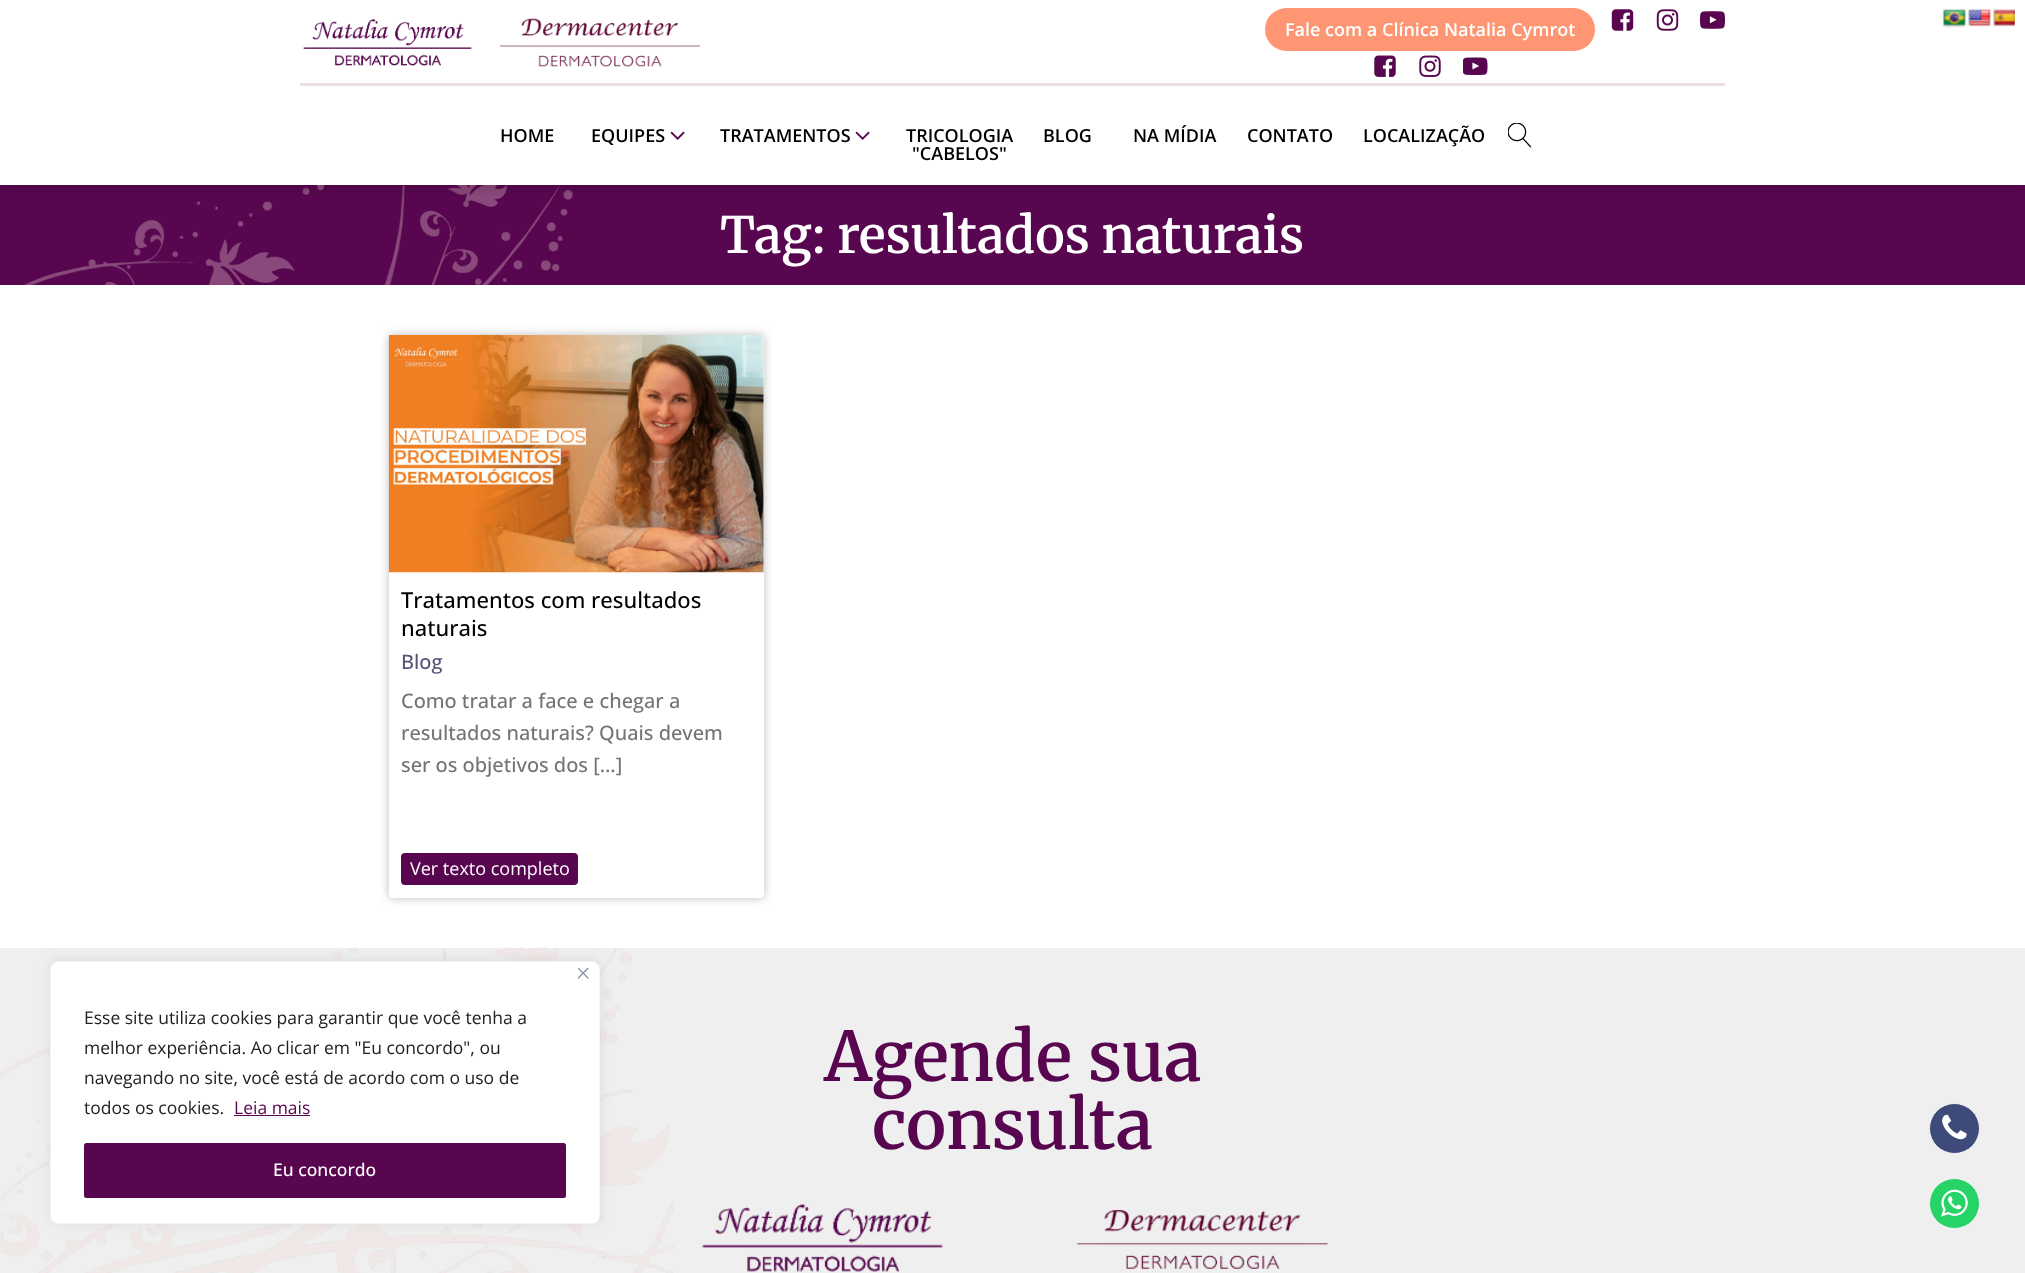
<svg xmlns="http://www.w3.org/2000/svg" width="2025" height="1273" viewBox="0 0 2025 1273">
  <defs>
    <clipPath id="clip1"><rect x="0" y="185" width="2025" height="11"/></clipPath>
    <filter id="blur1" x="-50%" y="-200%" width="200%" height="500%"><feGaussianBlur stdDeviation="6"/></filter>
    <filter id="blur2" x="-50%" y="-200%" width="200%" height="500%"><feGaussianBlur stdDeviation="5"/></filter>
  </defs>
  <rect width="100%" height="100%" fill="#ffffff"/>
  <rect x="0" y="185" width="2025" height="100" fill="#580650"/>
  <image x="23" y="185" width="550" height="100" href="img14.png"/>
  <g clip-path="url(#clip1)">
    <rect x="0" y="6" width="2025" height="185" fill="#000000" fill-opacity="0.1" filter="url(#blur1)"/>
  </g>
  <image x="1942" y="9" width="24" height="19" href="img1.png"/>
  <image x="1968" y="9" width="23" height="18" href="img2.png"/>
  <image x="1993" y="9" width="22" height="18" href="img3.png"/>
  <rect x="300" y="83" width="1425" height="3" fill="#ebdfe5"/>
  <image x="303" y="19" width="169" height="47" href="img4.png"/>
  <image x="500" y="18" width="200" height="49" href="img5.png"/>
  <rect x="1265" y="8" width="330" height="43" rx="21.5" fill="#fe9673"/>
  <text x="1285" y="36" font-family="Open Sans" font-size="18" font-weight="600" fill="#ffffff">Fale com a Clínica Natalia Cymrot</text>
  <image x="1374" y="55" width="22" height="22" href="img6.png"/>
  <image x="1419" y="55" width="22" height="22" href="img7.png"/>
  <image x="1463" y="57" width="25" height="18" href="img8.png"/>
  <image x="1611" y="9" width="23" height="22" href="img9.png"/>
  <image x="1656" y="9" width="23" height="22" href="img10.png"/>
  <image x="1700" y="11" width="25" height="18" href="img11.png"/>
  <text x="500" y="142" font-family="Open Sans" font-size="18" font-weight="600" fill="#000000">HOME</text>
  <text x="591" y="142" font-family="Open Sans" font-size="18" font-weight="600" fill="#000000">EQUIPES</text>
  <image x="670" y="131" width="15" height="9" href="img12.png"/>
  <text x="720" y="142" font-family="Open Sans" font-size="18" font-weight="600" fill="#000000">TRATAMENTOS</text>
  <image x="855" y="131" width="15" height="9" href="img12.png"/>
  <text x="906" y="142" font-family="Open Sans" font-size="18" font-weight="600" fill="#000000">TRICOLOGIA</text>
  <text x="912" y="160" font-family="Open Sans" font-size="18" font-weight="600" fill="#000000">"CABELOS"</text>
  <text x="1043" y="142" font-family="Open Sans" font-size="18" font-weight="600" fill="#000000">BLOG</text>
  <text x="1133" y="142" font-family="Open Sans" font-size="18" font-weight="600" fill="#000000">NA MÍDIA</text>
  <text x="1247" y="142" font-family="Open Sans" font-size="18" font-weight="600" fill="#000000">CONTATO</text>
  <text x="1363" y="142" font-family="Open Sans" font-size="18" font-weight="600" fill="#000000">LOCALIZAÇÃO</text>
  <image x="1508" y="123" width="24" height="25" href="img13.png"/>
  <text x="720" y="253" font-family="Merriweather" font-size="50" font-weight="600" fill="#ffffff">Tag: resultados naturais</text>
  <rect x="389" y="335" width="375" height="563" rx="4" fill="#bcbcbc" filter="url(#blur2)"/>
  <rect x="389" y="335" width="375" height="563" rx="4" fill="#ffffff"/>
  <image x="388" y="335" width="376" height="238" href="img15.png"/>
  <text x="401" y="608" font-family="Open Sans" font-size="22" font-weight="500" fill="#000000">Tratamentos com resultados</text>
  <text x="401" y="636" font-family="Open Sans" font-size="22" font-weight="500" fill="#000000">naturais</text>
  <text x="401" y="669" font-family="Open Sans" font-size="20" font-weight="500" fill="#5d527a">Blog</text>
  <text x="401" y="708" font-family="Open Sans" font-size="20" font-weight="500" fill="#737478">Como tratar a face e chegar a</text>
  <text x="401" y="740" font-family="Open Sans" font-size="20" font-weight="500" fill="#737478">resultados naturais? Quais devem</text>
  <text x="401" y="772" font-family="Open Sans" font-size="20" font-weight="500" fill="#737478">ser os objetivos dos […]</text>
  <rect x="402.5" y="854.5" width="174" height="29" rx="2.5" fill="#580650" stroke="#580650" stroke-width="3"/>
  <text x="410" y="875" font-family="Open Sans" font-size="18" fill="#ffffff">Ver texto completo</text>
  <rect x="0" y="948" width="2025" height="325" fill="#efefef"/>
  <image x="0" y="947" width="674" height="326" href="img17.png"/>
  <rect x="50" y="960" width="550" height="263" rx="8" fill="#acabab" fill-opacity="0.3" filter="url(#blur1)"/>
  <rect x="50.5" y="961.5" width="549" height="262" rx="7.5" fill="#ffffff" stroke="#f4f4f4"/>
  <image x="578" y="968" width="11" height="11" href="img16.png"/>
  <text x="84" y="1024" font-family="Open Sans" font-size="17.5" fill="#212121">Esse site utiliza cookies para garantir que você tenha a</text>
  <text x="84" y="1054" font-family="Open Sans" font-size="17.5" fill="#212121">melhor experiência. Ao clicar em "Eu concordo", ou</text>
  <text x="84" y="1084" font-family="Open Sans" font-size="17.5" fill="#212121">navegando no site, você está de acordo com o uso de</text>
  <text x="84" y="1114" font-family="Open Sans" font-size="17.5" fill="#212121">todos os cookies.</text>
  <text x="234" y="1114" font-family="Open Sans" font-size="17.5" fill="#580650">Leia mais</text>
  <rect x="234" y="1115" width="76" height="1" fill="#580650"/>
  <rect x="85.5" y="1144.5" width="479" height="52" rx="1" fill="#580650" stroke="#580650" stroke-width="3"/>
  <text x="273" y="1176" font-family="Open Sans" font-size="17.5" font-weight="500" fill="#ffffff">Eu concordo</text>
  <text x="824" y="1081" font-family="Merriweather" font-size="68" font-weight="600" fill="#580650">Agende sua</text>
  <text x="872" y="1149" font-family="Merriweather" font-size="68" font-weight="600" fill="#580650">consulta</text>
  <image x="702" y="1204" width="241" height="68" href="img18.png"/>
  <image x="1077" y="1210" width="251" height="59" href="img19.png"/>
  <circle cx="1954.5" cy="1128.5" r="25" fill="#3e4a79" stroke="#f4f4f4"/>
  <image x="1942" y="1114" width="25" height="26" href="img20.png"/>
  <circle cx="1954.5" cy="1203.5" r="25" fill="#25d366" stroke="#f4f4f4"/>
  <image x="1941" y="1189" width="27" height="28" href="img21.png"/>
</svg>
